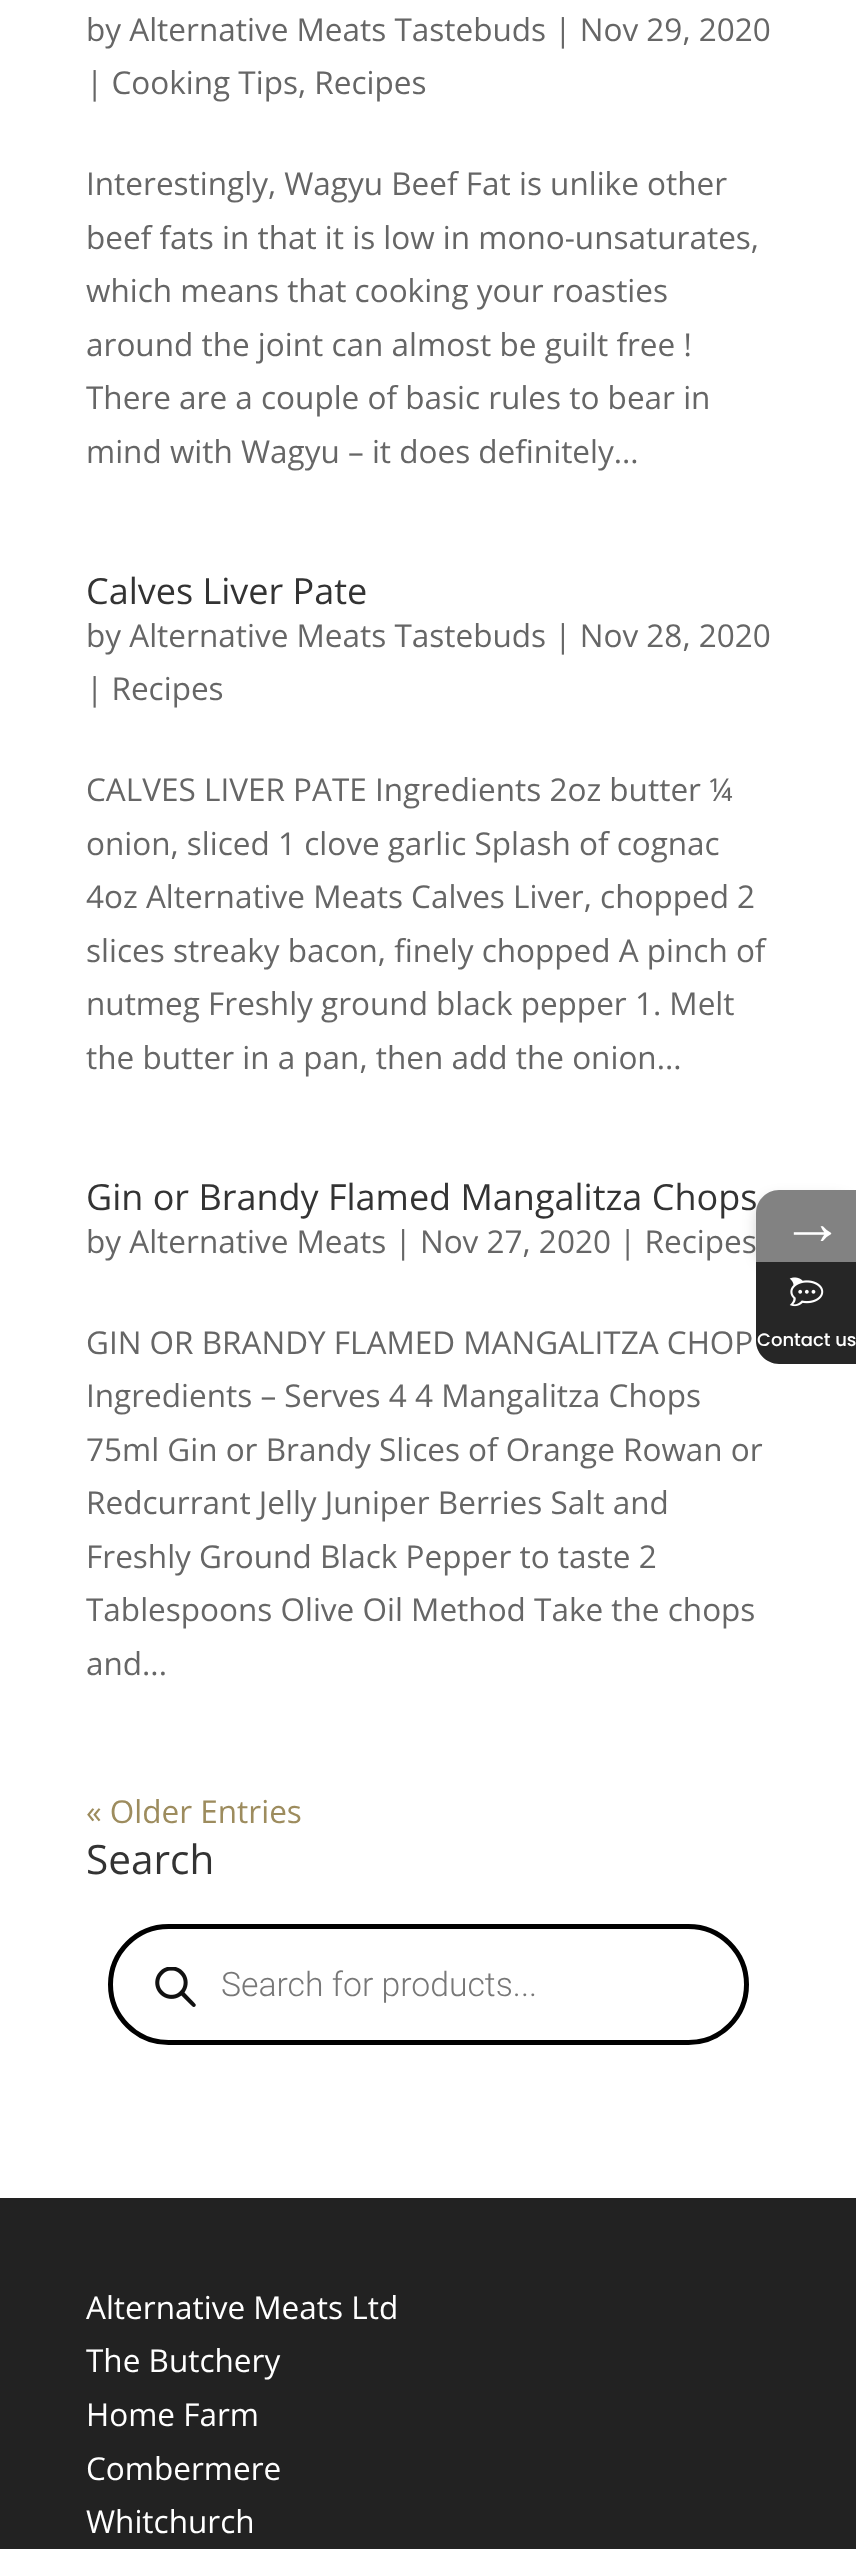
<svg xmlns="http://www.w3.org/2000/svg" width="856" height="2549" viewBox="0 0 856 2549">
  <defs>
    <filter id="blur1" x="-50%" y="-200%" width="200%" height="500%"><feGaussianBlur stdDeviation="7"/></filter>
  </defs>
  <rect width="100%" height="100%" fill="#ffffff"/>
  <text x="86" y="41" font-family="Open Sans" font-size="31.5" fill="#666666">by Alternative Meats Tastebuds | Nov 29, 2020</text>
  <text x="86" y="94" font-family="Open Sans" font-size="31.5" fill="#666666">| Cooking Tips, Recipes</text>
  <text x="86" y="195" font-family="Open Sans" font-size="31.5" fill="#666666">Interestingly, Wagyu Beef Fat is unlike other</text>
  <text x="86" y="249" font-family="Open Sans" font-size="31.5" fill="#666666">beef fats in that it is low in mono-unsaturates,</text>
  <text x="86" y="302" font-family="Open Sans" font-size="31.5" fill="#666666">which means that cooking your roasties</text>
  <text x="86" y="356" font-family="Open Sans" font-size="31.5" fill="#666666">around the joint can almost be guilt free !</text>
  <text x="86" y="409" font-family="Open Sans" font-size="31.5" fill="#666666">There are a couple of basic rules to bear in</text>
  <text x="86" y="463" font-family="Open Sans" font-size="31.5" fill="#666666">mind with Wagyu – it does definitely...</text>
  <text x="86" y="604" font-family="Open Sans" font-size="36" fill="#333333">Calves Liver Pate</text>
  <text x="86" y="647" font-family="Open Sans" font-size="31.5" fill="#666666">by Alternative Meats Tastebuds | Nov 28, 2020</text>
  <text x="86" y="700" font-family="Open Sans" font-size="31.5" fill="#666666">| Recipes</text>
  <text x="86" y="801" font-family="Open Sans" font-size="31.5" fill="#666666">CALVES LIVER PATE Ingredients 2oz butter ¼</text>
  <text x="86" y="855" font-family="Open Sans" font-size="31.5" fill="#666666">onion, sliced 1 clove garlic Splash of cognac</text>
  <text x="86" y="908" font-family="Open Sans" font-size="31.5" fill="#666666">4oz Alternative Meats Calves Liver, chopped 2</text>
  <text x="86" y="962" font-family="Open Sans" font-size="31.5" fill="#666666">slices streaky bacon, finely chopped A pinch of</text>
  <text x="86" y="1015" font-family="Open Sans" font-size="31.5" fill="#666666">nutmeg Freshly ground black pepper 1. Melt</text>
  <text x="86" y="1069" font-family="Open Sans" font-size="31.5" fill="#666666">the butter in a pan, then add the onion...</text>
  <text x="86" y="1210" font-family="Open Sans" font-size="36" fill="#333333">Gin or Brandy Flamed Mangalitza Chops</text>
  <text x="86" y="1253" font-family="Open Sans" font-size="31.5" fill="#666666">by Alternative Meats | Nov 27, 2020 | Recipes</text>
  <text x="86" y="1354" font-family="Open Sans" font-size="31.5" fill="#666666">GIN OR BRANDY FLAMED MANGALITZA CHOP</text>
  <text x="86" y="1407" font-family="Open Sans" font-size="31.5" fill="#666666">Ingredients – Serves 4 4 Mangalitza Chops</text>
  <text x="86" y="1461" font-family="Open Sans" font-size="31.5" fill="#666666">75ml Gin or Brandy Slices of Orange Rowan or</text>
  <text x="86" y="1514" font-family="Open Sans" font-size="31.5" fill="#666666">Redcurrant Jelly Juniper Berries Salt and</text>
  <text x="86" y="1568" font-family="Open Sans" font-size="31.5" fill="#666666">Freshly Ground Black Pepper to taste 2</text>
  <text x="86" y="1621" font-family="Open Sans" font-size="31.5" fill="#666666">Tablespoons Olive Oil Method Take the chops</text>
  <text x="86" y="1675" font-family="Open Sans" font-size="31.5" fill="#666666">and...</text>
  <text x="86" y="1823" font-family="Open Sans" font-size="31.5" fill="#9d8c5e">« Older Entries</text>
  <text x="86" y="1874" font-family="Open Sans" font-size="40.5" fill="#333333">Search</text>
  <rect x="110.5" y="1926.5" width="636" height="116" rx="58" fill="none" stroke="#000000" stroke-width="5"/>
  <image x="155" y="1967" width="41" height="40" href="img1.png"/>
  <text x="221" y="1996" font-family="Roboto" font-size="33.75" font-weight="300" fill="#777777">Search for products...</text>
  <rect x="0" y="2198" width="856" height="351" fill="#222222"/>
  <text x="86" y="2319" font-family="Open Sans" font-size="31.5" fill="#ffffff">Alternative Meats Ltd</text>
  <text x="86" y="2372" font-family="Open Sans" font-size="31.5" fill="#ffffff">The Butchery</text>
  <text x="86" y="2426" font-family="Open Sans" font-size="31.5" fill="#ffffff">Home Farm</text>
  <text x="86" y="2480" font-family="Open Sans" font-size="31.5" fill="#ffffff">Combermere</text>
  <text x="86" y="2533" font-family="Open Sans" font-size="31.5" fill="#ffffff">Whitchurch</text>
  <rect x="756" y="1197" width="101" height="72" rx="23" fill="#000000" fill-opacity="0.16" filter="url(#blur1)"/>
  <path d="M779 1190H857V1262H756V1213C756 1200.5 766.5 1190 779 1190Z" fill="#828282"/>
  <text x="781" y="1244" font-family="Liberation Serif" font-size="63" fill="#ffffff">→</text>
  <path d="M756 1262H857V1364H779C766.5 1364 756 1353.5 756 1341Z" fill="#262626"/>
  <image x="789" y="1277" width="35" height="30" href="img2.png"/>
  <text x="757" y="1346" font-family="Poppins" font-size="18" font-weight="500" fill="#ffffff">Contact us</text>
</svg>
